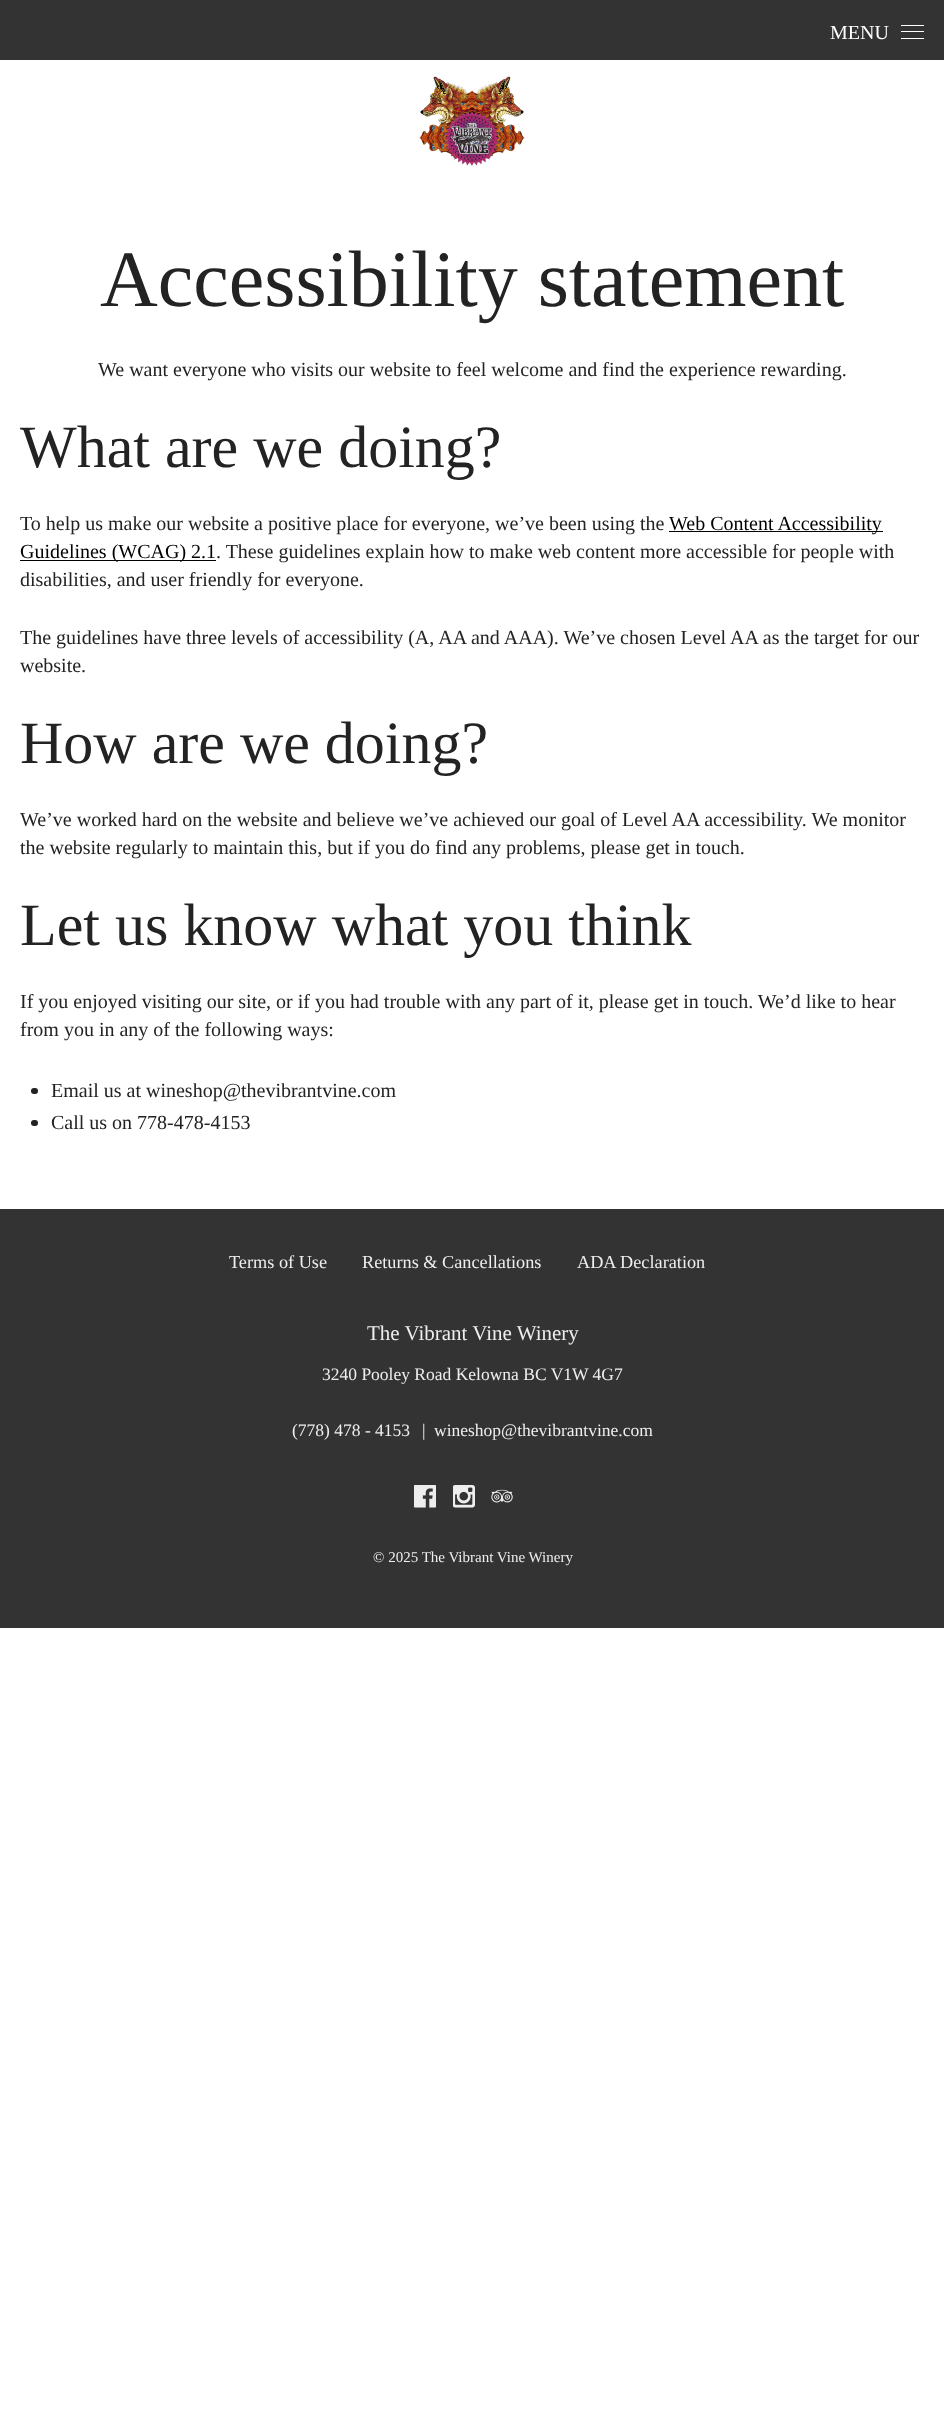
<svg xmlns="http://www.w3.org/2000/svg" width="944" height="2433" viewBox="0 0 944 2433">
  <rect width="100%" height="100%" fill="#ffffff"/>
  <rect x="0" y="0" width="944" height="60" fill="#333333"/>
  <text x="830" y="39" font-family="Liberation Serif" font-size="20" fill="#ffffff">MENU</text>
  <rect x="901" y="31" width="23" height="1" fill="#ffffff"/>
  <rect x="901" y="25" width="23" height="1" fill="#ffffff"/>
  <rect x="901" y="38" width="23" height="1" fill="#ffffff"/>
  <image x="419" y="76" width="106" height="90" href="img1.png"/>
  <text x="100" y="306" font-family="Liberation Serif" font-size="80" fill="#232324">Accessibility statement</text>
  <text x="98" y="376" font-family="Liberation Serif" font-size="20" fill="#232324">We want everyone who visits our website to feel welcome and find the experience rewarding.</text>
  <text x="20" y="467" font-family="Liberation Serif" font-size="60" fill="#232324">What are we doing?</text>
  <text x="20" y="530" font-family="Liberation Serif" font-size="20" fill="#232324">To help us make our website a positive place for everyone, we’ve been using the</text>
  <rect x="669" y="531" width="214" height="1" fill="#000000"/>
  <text x="669" y="530" font-family="Liberation Serif" font-size="20" fill="#000000">Web Content Accessibility</text>
  <rect x="20" y="560" width="196" height="1" fill="#000000"/>
  <text x="20" y="558" font-family="Liberation Serif" font-size="20" fill="#000000">Guidelines (WCAG) 2.1</text>
  <text x="216" y="558" font-family="Liberation Serif" font-size="20" fill="#232324">. These guidelines explain how to make web content more accessible for people with</text>
  <text x="20" y="586" font-family="Liberation Serif" font-size="20" fill="#232324">disabilities, and user friendly for everyone.</text>
  <text x="20" y="644" font-family="Liberation Serif" font-size="20" fill="#232324">The guidelines have three levels of accessibility (A, AA and AAA). We’ve chosen Level AA as the target for our</text>
  <text x="20" y="672" font-family="Liberation Serif" font-size="20" fill="#232324">website.</text>
  <text x="20" y="763" font-family="Liberation Serif" font-size="60" fill="#232324">How are we doing?</text>
  <text x="20" y="826" font-family="Liberation Serif" font-size="20" fill="#232324">We’ve worked hard on the website and believe we’ve achieved our goal of Level AA accessibility. We monitor</text>
  <text x="20" y="854" font-family="Liberation Serif" font-size="20" fill="#232324">the website regularly to maintain this, but if you do find any problems, please get in touch.</text>
  <text x="20" y="945" font-family="Liberation Serif" font-size="60" fill="#232324">Let us know what you think</text>
  <text x="20" y="1008" font-family="Liberation Serif" font-size="20" fill="#232324">If you enjoyed visiting our site, or if you had trouble with any part of it, please get in touch. We’d like to hear</text>
  <text x="20" y="1036" font-family="Liberation Serif" font-size="20" fill="#232324">from you in any of the following ways:</text>
  <rect x="31" y="1088" width="7" height="6" rx="3" fill="#232324"/>
  <text x="51" y="1097" font-family="Liberation Serif" font-size="20" fill="#232324">Email us at wineshop@thevibrantvine.com</text>
  <rect x="31" y="1120" width="7" height="6" rx="3" fill="#232324"/>
  <text x="51" y="1129" font-family="Liberation Serif" font-size="20" fill="#232324">Call us on 778-478-4153</text>
  <rect x="0" y="1209" width="944" height="419" fill="#333333"/>
  <text x="229" y="1268" font-family="Liberation Serif" font-size="18.25" fill="#eeeeee">Terms of Use</text>
  <text x="362" y="1268" font-family="Liberation Serif" font-size="18.25" fill="#eeeeee">Returns &amp; Cancellations</text>
  <text x="577" y="1268" font-family="Liberation Serif" font-size="18.25" fill="#eeeeee">ADA Declaration</text>
  <text x="367" y="1340" font-family="Liberation Serif" font-size="21" fill="#eeeeee">The Vibrant Vine Winery</text>
  <text x="322" y="1380" font-family="Liberation Serif" font-size="17.5" fill="#eeeeee">3240 Pooley Road Kelowna BC V1W 4G7</text>
  <text x="292" y="1436" font-family="Liberation Serif" font-size="17.5" fill="#eeeeee">(778) 478 - 4153</text>
  <text x="422" y="1436" font-family="Liberation Serif" font-size="17.5" fill="#eeeeee">|</text>
  <text x="434" y="1436" font-family="Liberation Serif" font-size="17.5" fill="#eeeeee">wineshop@thevibrantvine.com</text>
  <image x="414" y="1485" width="22" height="23" href="img2.png"/>
  <image x="453" y="1485" width="22" height="23" href="img3.png"/>
  <image x="491" y="1489" width="22" height="14" href="img4.png"/>
  <text x="373" y="1562" font-family="Liberation Serif" font-size="15" fill="#eeeeee">© 2025 The Vibrant Vine Winery</text>
</svg>
